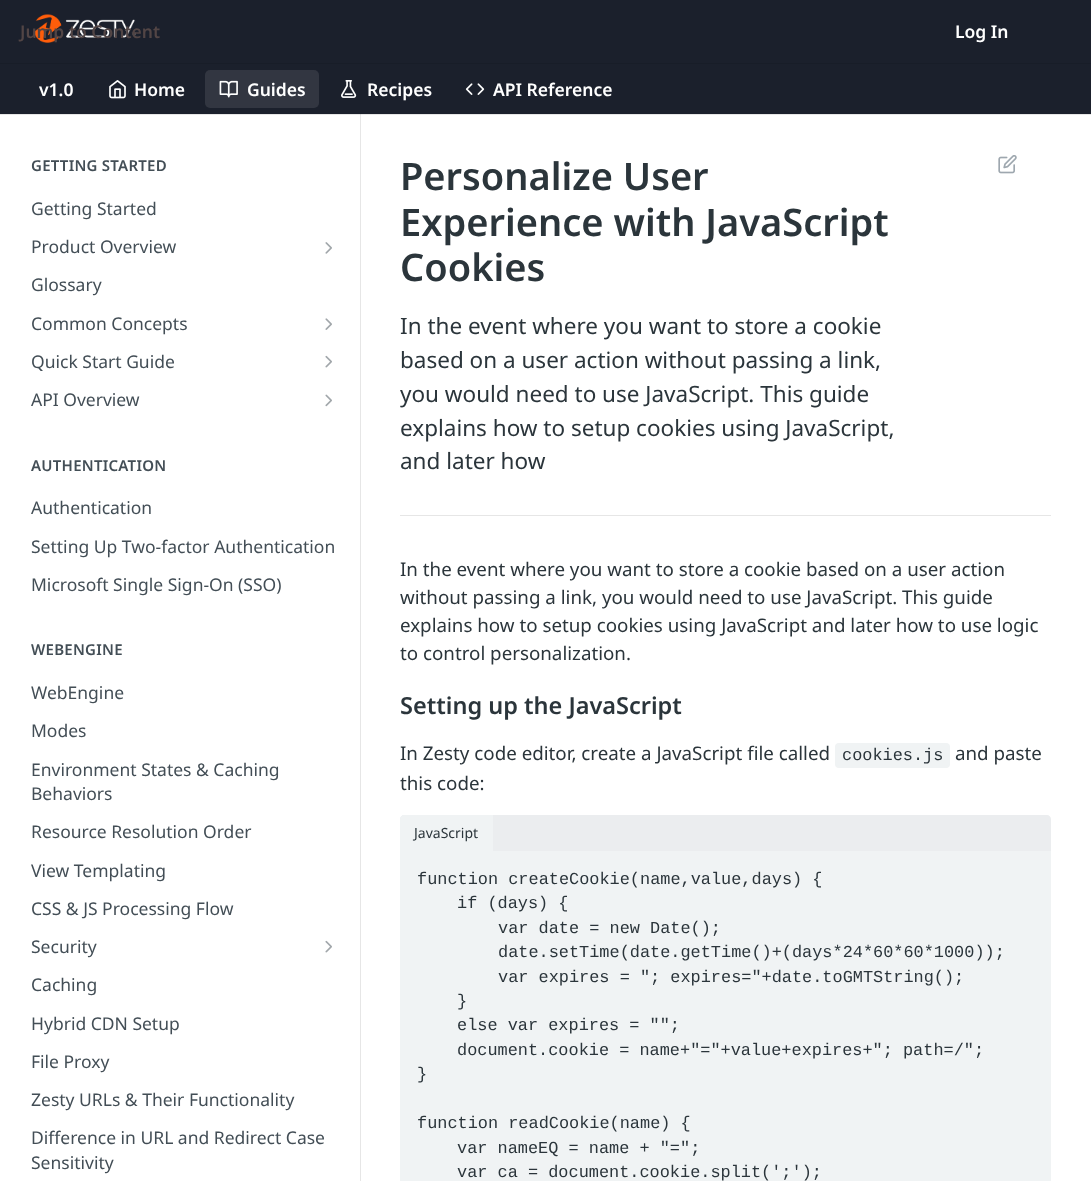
<svg xmlns="http://www.w3.org/2000/svg" width="1091" height="1181" viewBox="0 0 1091 1181">
  <rect width="100%" height="100%" fill="#ffffff"/>
  <rect x="0" y="114" width="1091" height="1" fill="#e6e6e6"/>
  <rect x="0" y="0" width="1091" height="114" fill="#1b202c"/>
  <rect x="0" y="63" width="1091" height="1" fill="#181d28"/>
  <image x="33" y="14" width="103" height="29" href="img1.png"/>
  <text x="20" y="38" font-family="Noto Sans" font-size="17.5" font-weight="600" fill="#524545">Jump to Content</text>
  <text x="955" y="38" font-family="Noto Sans" font-size="17.5" font-weight="600" fill="#ffffff">Log In</text>
  <text x="39" y="96" font-family="Noto Sans" font-size="17.5" font-weight="600" fill="#ffffff">v1.0</text>
  <image x="109" y="80" width="17" height="19" href="img2.png"/>
  <text x="134" y="96" font-family="Noto Sans" font-size="17.5" font-weight="600" fill="#ffffff">Home</text>
  <rect x="205" y="70" width="114" height="38" rx="5" fill="#323641"/>
  <image x="219" y="80" width="19" height="18" href="img3.png"/>
  <text x="247" y="96" font-family="Noto Sans" font-size="17.5" font-weight="600" fill="#ffffff">Guides</text>
  <image x="341" y="80" width="16" height="18" href="img4.png"/>
  <text x="367" y="96" font-family="Noto Sans" font-size="17.5" font-weight="600" fill="#ffffff">Recipes</text>
  <image x="465" y="83" width="20" height="12" href="img5.png"/>
  <text x="493" y="96" font-family="Noto Sans" font-size="17.5" font-weight="600" fill="#ffffff">API Reference</text>
  <rect x="360" y="114" width="1" height="1067" fill="#e6e6e6"/>
  <rect x="360" y="114" width="1" height="1" fill="#cfcfcf"/>
  <text x="31" y="171" font-family="Noto Sans" font-size="15" font-weight="600" letter-spacing="0.25" fill="#434e56">GETTING STARTED</text>
  <text x="31" y="215" font-family="Noto Sans" font-size="17.5" fill="#434e56">Getting Started</text>
  <text x="31" y="253" font-family="Noto Sans" font-size="17.5" fill="#434e56">Product Overview</text>
  <image x="325" y="242" width="7" height="12" href="img6.png"/>
  <text x="31" y="291" font-family="Noto Sans" font-size="17.5" fill="#434e56">Glossary</text>
  <text x="31" y="330" font-family="Noto Sans" font-size="17.5" fill="#434e56">Common Concepts</text>
  <image x="325" y="318" width="7" height="12" href="img7.png"/>
  <text x="31" y="368" font-family="Noto Sans" font-size="17.5" fill="#434e56">Quick Start Guide</text>
  <image x="325" y="355" width="7" height="13" href="img8.png"/>
  <text x="31" y="406" font-family="Noto Sans" font-size="17.5" fill="#434e56">API Overview</text>
  <image x="325" y="394" width="7" height="13" href="img9.png"/>
  <text x="31" y="471" font-family="Noto Sans" font-size="15" font-weight="600" letter-spacing="0.25" fill="#434e56">AUTHENTICATION</text>
  <text x="31" y="514" font-family="Noto Sans" font-size="17.5" fill="#434e56">Authentication</text>
  <text x="31" y="553" font-family="Noto Sans" font-size="17.5" fill="#434e56">Setting Up Two-factor Authentication</text>
  <text x="31" y="591" font-family="Noto Sans" font-size="17.5" fill="#434e56">Microsoft Single Sign-On (SSO)</text>
  <text x="31" y="655" font-family="Noto Sans" font-size="15" font-weight="600" letter-spacing="0.25" fill="#434e56">WEBENGINE</text>
  <text x="31" y="699" font-family="Noto Sans" font-size="17.5" fill="#434e56">WebEngine</text>
  <text x="31" y="737" font-family="Noto Sans" font-size="17.5" fill="#434e56">Modes</text>
  <text x="31" y="776" font-family="Noto Sans" font-size="17.5" fill="#434e56">Environment States &amp; Caching</text>
  <text x="31" y="800" font-family="Noto Sans" font-size="17.5" fill="#434e56">Behaviors</text>
  <text x="31" y="838" font-family="Noto Sans" font-size="17.5" fill="#434e56">Resource Resolution Order</text>
  <text x="31" y="877" font-family="Noto Sans" font-size="17.5" fill="#434e56">View Templating</text>
  <text x="31" y="915" font-family="Noto Sans" font-size="17.5" fill="#434e56">CSS &amp; JS Processing Flow</text>
  <text x="31" y="953" font-family="Noto Sans" font-size="17.5" fill="#434e56">Security</text>
  <image x="325" y="940" width="7" height="13" href="img8.png"/>
  <text x="31" y="991" font-family="Noto Sans" font-size="17.5" fill="#434e56">Caching</text>
  <text x="31" y="1030" font-family="Noto Sans" font-size="17.5" fill="#434e56">Hybrid CDN Setup</text>
  <text x="31" y="1068" font-family="Noto Sans" font-size="17.5" fill="#434e56">File Proxy</text>
  <text x="31" y="1106" font-family="Noto Sans" font-size="17.5" fill="#434e56">Zesty URLs &amp; Their Functionality</text>
  <text x="31" y="1144" font-family="Noto Sans" font-size="17.5" fill="#434e56">Difference in URL and Redirect Case</text>
  <text x="31" y="1169" font-family="Noto Sans" font-size="17.5" fill="#434e56">Sensitivity</text>
  <rect x="400" y="515" width="651" height="1" fill="#e6e6e6"/>
  <text x="400" y="190" font-family="Noto Sans" font-size="38" font-weight="600" fill="#2b353b">Personalize User</text>
  <text x="400" y="236" font-family="Noto Sans" font-size="38" font-weight="600" fill="#2b353b">Experience with JavaScript</text>
  <text x="400" y="281" font-family="Noto Sans" font-size="38" font-weight="600" fill="#2b353b">Cookies</text>
  <text x="400" y="334" font-family="Noto Sans" font-size="22.5" fill="#2b353b">In the event where you want to store a cookie</text>
  <text x="400" y="368" font-family="Noto Sans" font-size="22.5" fill="#2b353b">based on a user action without passing a link,</text>
  <text x="400" y="402" font-family="Noto Sans" font-size="22.5" fill="#2b353b">you would need to use JavaScript. This guide</text>
  <text x="400" y="436" font-family="Noto Sans" font-size="22.5" fill="#2b353b">explains how to setup cookies using JavaScript,</text>
  <text x="400" y="469" font-family="Noto Sans" font-size="22.5" fill="#2b353b">and later how</text>
  <image x="998" y="155" width="19" height="19" href="img10.png"/>
  <text x="400" y="576" font-family="Noto Sans" font-size="18.75" fill="#2b353b">In the event where you want to store a cookie based on a user action</text>
  <text x="400" y="604" font-family="Noto Sans" font-size="18.75" fill="#2b353b">without passing a link, you would need to use JavaScript. This guide</text>
  <text x="400" y="632" font-family="Noto Sans" font-size="18.75" fill="#2b353b">explains how to setup cookies using JavaScript and later how to use logic</text>
  <text x="400" y="660" font-family="Noto Sans" font-size="18.75" fill="#2b353b">to control personalization.</text>
  <text x="400" y="714" font-family="Noto Sans" font-size="23.5" font-weight="600" fill="#2b353b">Setting up the JavaScript</text>
  <text x="400" y="760" font-family="Noto Sans" font-size="18.75" fill="#2b353b">In Zesty code editor, create a JavaScript file called</text>
  <rect x="835" y="743" width="115" height="25" rx="4" fill="#f0f3f4"/>
  <text x="842" y="760" font-family="Liberation Mono" font-size="16.9" fill="#2b353b">cookies.js</text>
  <text x="955" y="760" font-family="Noto Sans" font-size="18.75" fill="#2b353b">and paste</text>
  <text x="400" y="790" font-family="Noto Sans" font-size="18.75" fill="#2b353b">this code:</text>
  <path d="M404 815H1047C1049 815 1051 817 1051 819V851H400V819C400 817 402 815 404 815Z" fill="#ebedef"/>
  <path d="M404 815H493V851H400V819C400 817 402 815 404 815Z" fill="#f0f3f4"/>
  <text x="414" y="838" font-family="Noto Sans" font-size="14" fill="#2b353b">JavaScript</text>
  <rect x="400" y="851" width="651" height="330" fill="#f0f3f4"/>
  <text x="417" y="884" font-family="Liberation Mono" font-size="16.9" fill="#2b353b">function createCookie(name,value,days) {</text>
  <text x="457" y="908" font-family="Liberation Mono" font-size="16.9" fill="#2b353b">if (days) {</text>
  <text x="498" y="933" font-family="Liberation Mono" font-size="16.9" fill="#2b353b">var date = new Date();</text>
  <text x="498" y="957" font-family="Liberation Mono" font-size="16.9" fill="#2b353b">date.setTime(date.getTime()+(days*24*60*60*1000));</text>
  <text x="498" y="982" font-family="Liberation Mono" font-size="16.9" fill="#2b353b">var expires = "; expires="+date.toGMTString();</text>
  <text x="457" y="1006" font-family="Liberation Mono" font-size="16.9" fill="#2b353b">}</text>
  <text x="457" y="1030" font-family="Liberation Mono" font-size="16.9" fill="#2b353b">else var expires = "";</text>
  <text x="457" y="1055" font-family="Liberation Mono" font-size="16.9" fill="#2b353b">document.cookie = name+"="+value+expires+"; path=/";</text>
  <text x="417" y="1079" font-family="Liberation Mono" font-size="16.9" fill="#2b353b">}</text>
  <text x="417" y="1128" font-family="Liberation Mono" font-size="16.9" fill="#2b353b">function readCookie(name) {</text>
  <text x="457" y="1153" font-family="Liberation Mono" font-size="16.9" fill="#2b353b">var nameEQ = name + "=";</text>
  <text x="457" y="1177" font-family="Liberation Mono" font-size="16.9" fill="#2b353b">var ca = document.cookie.split(';');</text>
</svg>
